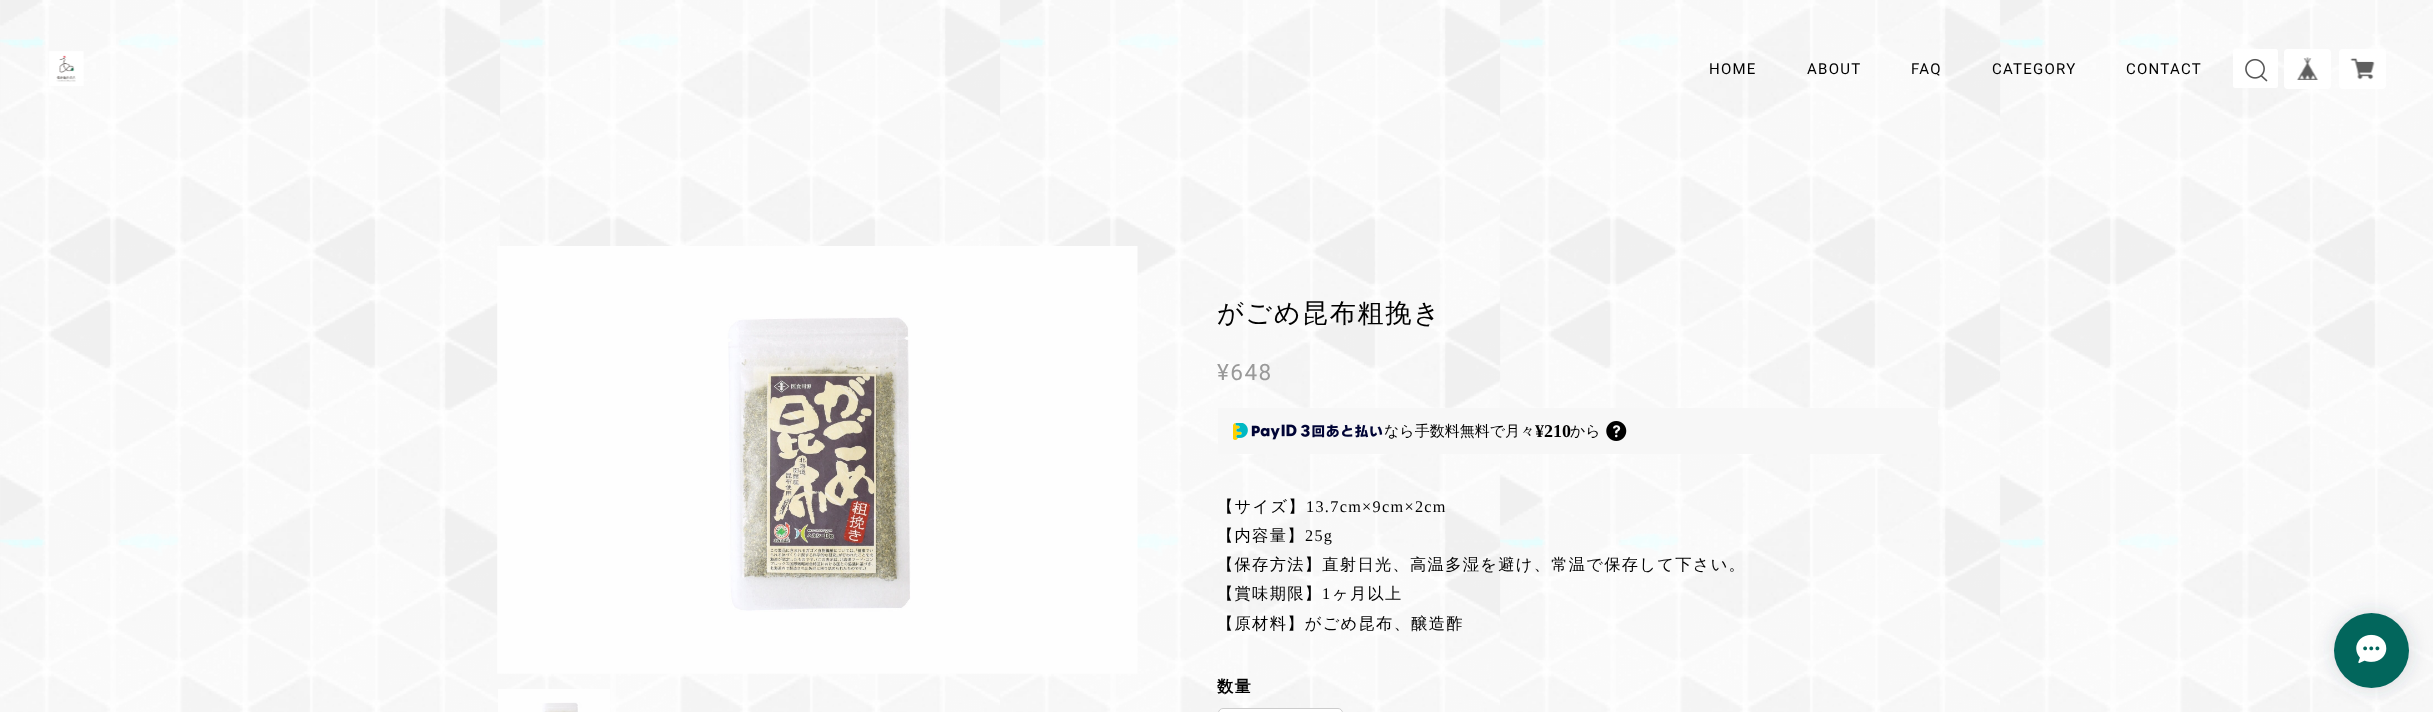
<svg xmlns="http://www.w3.org/2000/svg" width="2433" height="712" viewBox="0 0 2433 712">
  <defs>
    <filter id="blur1" x="-50%" y="-200%" width="200%" height="500%"><feGaussianBlur stdDeviation="9.5"/></filter>
  </defs>
  <rect width="100%" height="100%" fill="#ffffff"/>
  <image x="0" y="0" width="2433" height="712" href="img1.png"/>
  <image x="49" y="51" width="35" height="35" href="img2.png"/>
  <text x="1709" y="74" font-family="Roboto" font-size="15" letter-spacing="1.25" fill="#000000">HOME</text>
  <text x="1807" y="74" font-family="Roboto" font-size="15" letter-spacing="1.25" fill="#000000">ABOUT</text>
  <text x="1911" y="74" font-family="Roboto" font-size="15" letter-spacing="1.25" fill="#000000">FAQ</text>
  <text x="1992" y="74" font-family="Roboto" font-size="15" letter-spacing="1.25" fill="#000000">CATEGORY</text>
  <text x="2126" y="74" font-family="Roboto" font-size="15" letter-spacing="1.25" fill="#000000">CONTACT</text>
  <rect x="2233" y="49" width="45" height="39" rx="2.5" fill="#ffffff"/>
  <image x="2245" y="58" width="23" height="24" href="img3.png"/>
  <rect x="2284" y="49" width="47" height="40" rx="4" fill="#ffffff"/>
  <image x="2296" y="57" width="23" height="23" href="img4.png"/>
  <rect x="2339" y="49" width="47" height="40" rx="4" fill="#ffffff"/>
  <image x="2350" y="58" width="25" height="22" href="img5.png"/>
  <image x="497" y="246" width="641" height="428" href="img6.png"/>
  <image x="498" y="689" width="112" height="23" href="img7.png"/>
  <text x="1217" y="322" font-family="WenQuanYi Zen Hei" font-size="26.25" font-weight="500" letter-spacing="1.5" fill="#000000">がごめ昆布粗挽き</text>
  <text x="1217" y="380" font-family="Roboto" font-size="22.5" letter-spacing="1.5" fill="#999999">¥648</text>
  <rect x="1218" y="408" width="720" height="46" fill="#f7f7f7"/>
  <image x="1233" y="423" width="150" height="17" href="img8.png"/>
  <text x="1384" y="436" font-family="WenQuanYi Zen Hei" font-size="15" font-weight="500" fill="#000000">なら手数料無料で月々</text>
  <text x="1535" y="437" font-family="Liberation Serif" font-size="18" font-weight="bold" fill="#000000">¥210</text>
  <text x="1570" y="436" font-family="WenQuanYi Zen Hei" font-size="15" font-weight="500" fill="#000000">から</text>
  <image x="1606" y="421" width="21" height="20" href="img9.png"/>
  <text x="1217" y="512" font-family="WenQuanYi Zen Hei" font-size="16.25" font-weight="500" letter-spacing="1.3" fill="#000000">【サイズ】</text>
  <text x="1306" y="512" font-family="Liberation Serif" font-size="16.25" letter-spacing="1.3" fill="#000000">13.7cm×9cm×2cm</text>
  <text x="1217" y="541" font-family="WenQuanYi Zen Hei" font-size="16.25" font-weight="500" letter-spacing="1.3" fill="#000000">【内容量】</text>
  <text x="1305" y="541" font-family="Liberation Serif" font-size="16.25" letter-spacing="1.3" fill="#000000">25g</text>
  <text x="1217" y="570" font-family="WenQuanYi Zen Hei" font-size="16.25" font-weight="500" letter-spacing="1.3" fill="#000000">【保存方法】直射日光、高温多湿を避け、常温で保存して下さい。</text>
  <text x="1217" y="599" font-family="WenQuanYi Zen Hei" font-size="16.25" font-weight="500" letter-spacing="1.3" fill="#000000">【賞味期限】</text>
  <text x="1322" y="599" font-family="Liberation Serif" font-size="16.25" letter-spacing="1.3" fill="#000000">1</text>
  <text x="1332" y="599" font-family="WenQuanYi Zen Hei" font-size="16.25" font-weight="500" letter-spacing="1.3" fill="#000000">ヶ月以上</text>
  <text x="1217" y="629" font-family="WenQuanYi Zen Hei" font-size="16.25" font-weight="500" letter-spacing="1.3" fill="#000000">【原材料】がごめ昆布、醸造酢</text>
  <text x="1217" y="692" font-family="WenQuanYi Zen Hei" font-size="16.25" font-weight="bold" letter-spacing="1.3" fill="#000000">数量</text>
  <rect x="1218.5" y="708.5" width="124" height="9" rx="4.5" fill="#ffffff" stroke="#cccccc"/>
  <rect x="2334" y="613" width="75" height="75" rx="37.5" fill="#334258" fill-opacity="0.2" filter="url(#blur1)"/>
  <circle cx="2371.5" cy="650.5" r="37.5" fill="#02665c"/>
  <image x="2356" y="634" width="31" height="30" href="img10.png"/>
</svg>
